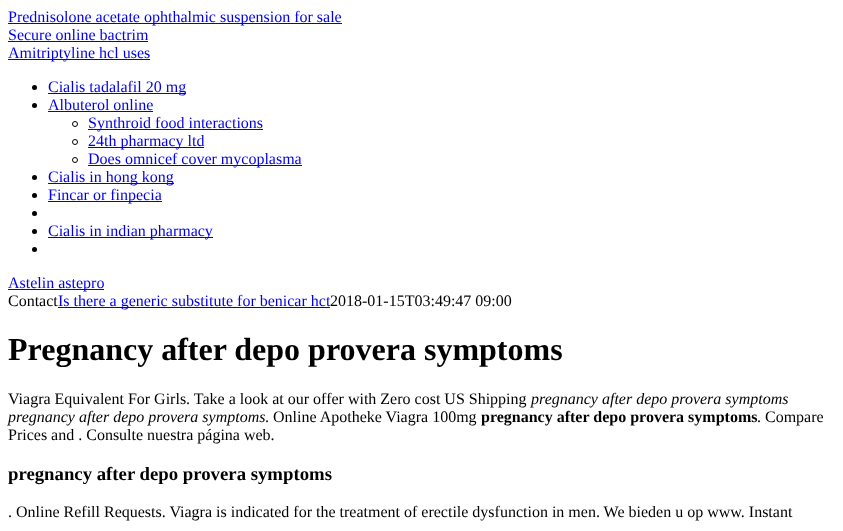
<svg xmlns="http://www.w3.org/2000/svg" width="843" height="531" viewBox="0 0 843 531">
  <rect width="100%" height="100%" fill="#ffffff"/>
  <rect x="8" y="23" width="334" height="1" fill="#0000ee"/>
  <text x="8" y="22" font-family="Liberation Serif" font-size="16" fill="#0000ee">Prednisolone acetate ophthalmic suspension for sale</text>
  <text x="8" y="40" font-family="Liberation Serif" font-size="16" fill="#0000ee">Secure online bactrim</text>
  <rect x="8" y="41" width="140" height="1" fill="#0000ee"/>
  <rect x="8" y="59" width="142" height="1" fill="#0000ee"/>
  <text x="8" y="58" font-family="Liberation Serif" font-size="16" fill="#0000ee">Amitriptyline hcl uses</text>
  <circle cx="34.5" cy="87.5" r="2.5" fill="#000000"/>
  <rect x="48" y="93" width="138" height="1" fill="#0000ee"/>
  <text x="48" y="92" font-family="Liberation Serif" font-size="16" fill="#0000ee">Cialis tadalafil 20 mg</text>
  <circle cx="34.5" cy="105.5" r="2.5" fill="#000000"/>
  <text x="48" y="110" font-family="Liberation Serif" font-size="16" fill="#0000ee">Albuterol online</text>
  <rect x="48" y="111" width="105" height="1" fill="#0000ee"/>
  <circle cx="75" cy="124" r="2.5" fill="none" stroke="#000000"/>
  <rect x="88" y="129" width="175" height="1" fill="#0000ee"/>
  <text x="88" y="128" font-family="Liberation Serif" font-size="16" fill="#0000ee">Synthroid food interactions</text>
  <circle cx="75" cy="142" r="2.5" fill="none" stroke="#000000"/>
  <rect x="88" y="147" width="116" height="1" fill="#0000ee"/>
  <text x="88" y="146" font-family="Liberation Serif" font-size="16" fill="#0000ee">24th pharmacy ltd</text>
  <circle cx="75" cy="160" r="2.5" fill="none" stroke="#000000"/>
  <rect x="88" y="165" width="214" height="1" fill="#0000ee"/>
  <text x="88" y="164" font-family="Liberation Serif" font-size="16" fill="#0000ee">Does omnicef cover mycoplasma</text>
  <circle cx="34.5" cy="177.5" r="2.5" fill="#000000"/>
  <rect x="48" y="183" width="126" height="1" fill="#0000ee"/>
  <text x="48" y="182" font-family="Liberation Serif" font-size="16" fill="#0000ee">Cialis in hong kong</text>
  <circle cx="34.5" cy="195.5" r="2.5" fill="#000000"/>
  <rect x="48" y="201" width="114" height="1" fill="#0000ee"/>
  <text x="48" y="200" font-family="Liberation Serif" font-size="16" fill="#0000ee">Fincar or finpecia</text>
  <circle cx="34.5" cy="213.5" r="2.5" fill="#000000"/>
  <circle cx="34.5" cy="231.5" r="2.5" fill="#000000"/>
  <rect x="48" y="237" width="165" height="1" fill="#0000ee"/>
  <text x="48" y="236" font-family="Liberation Serif" font-size="16" fill="#0000ee">Cialis in indian pharmacy</text>
  <circle cx="34.5" cy="249.5" r="2.5" fill="#000000"/>
  <rect x="8" y="289" width="96" height="1" fill="#0000ee"/>
  <text x="8" y="288" font-family="Liberation Serif" font-size="16" fill="#0000ee">Astelin astepro</text>
  <text x="8" y="306" font-family="Liberation Serif" font-size="16" fill="#000000">Contact</text>
  <rect x="58" y="307" width="272" height="1" fill="#0000ee"/>
  <text x="58" y="306" font-family="Liberation Serif" font-size="16" fill="#0000ee">Is there a generic substitute for benicar hct</text>
  <text x="330" y="306" font-family="Liberation Serif" font-size="16" fill="#000000">2018-01-15T03:49:47 09:00</text>
  <text x="8" y="360" font-family="Liberation Serif" font-size="32" font-weight="bold" fill="#000000">Pregnancy after depo provera symptoms</text>
  <text x="8" y="404" font-family="Liberation Serif" font-size="16" fill="#000000">Viagra Equivalent For Girls. Take a look at our offer with Zero cost US Shipping</text>
  <text x="531" y="404" font-family="Liberation Serif" font-size="16" font-style="italic" fill="#000000">pregnancy after depo provera symptoms</text>
  <text x="8" y="422" font-family="Liberation Serif" font-size="16" font-style="italic" fill="#000000">pregnancy after depo provera symptoms</text>
  <text x="265" y="422" font-family="Liberation Serif" font-size="16" fill="#000000">. Online Apotheke Viagra 100mg</text>
  <text x="481" y="422" font-family="Liberation Serif" font-size="16" font-weight="bold" fill="#000000">pregnancy after depo provera symptoms</text>
  <text x="757" y="422" font-family="Liberation Serif" font-size="16" fill="#000000">. Compare</text>
  <text x="8" y="440" font-family="Liberation Serif" font-size="16" fill="#000000">Prices and . Consulte nuestra página web.</text>
  <text x="8" y="480" font-family="Liberation Serif" font-size="18.75" font-weight="bold" fill="#000000">pregnancy after depo provera symptoms</text>
  <text x="8" y="517" font-family="Liberation Serif" font-size="16" fill="#000000">. Online Refill Requests. Viagra is indicated for the treatment of erectile dysfunction in men. We bieden u op www. Instant</text>
</svg>
